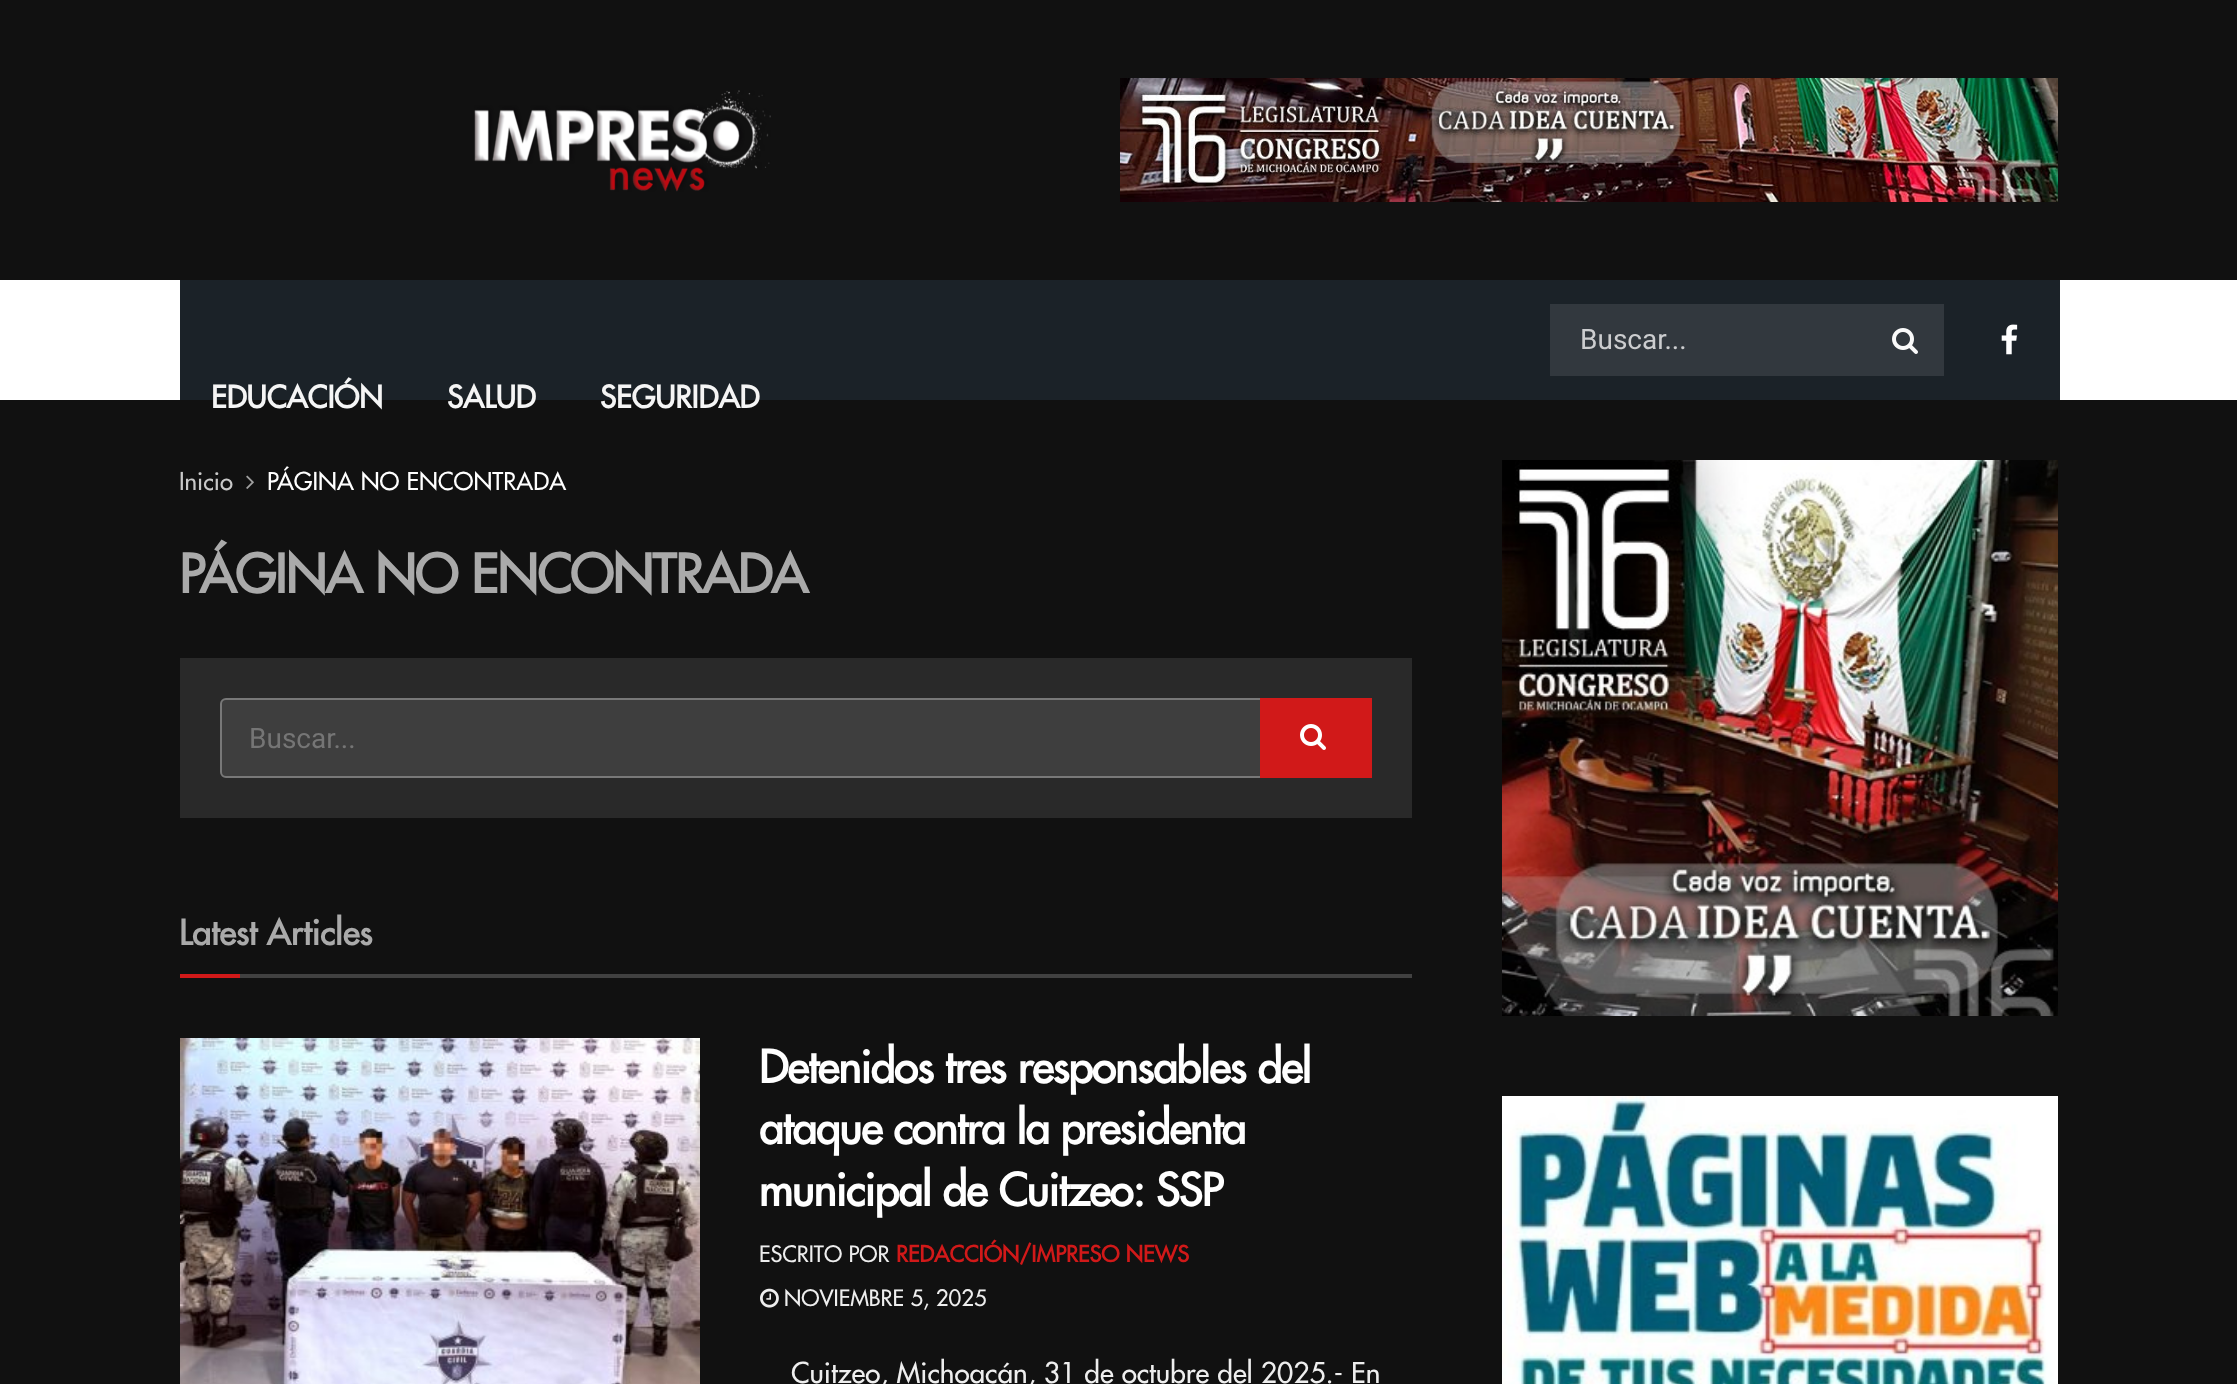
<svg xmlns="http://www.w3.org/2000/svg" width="2237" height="1384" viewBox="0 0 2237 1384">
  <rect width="100%" height="100%" fill="#111111"/>
  <image x="474" y="90" width="297" height="102" href="img1.png"/>
  <image x="1120" y="78" width="938" height="124" href="img2.png"/>
  <rect x="0" y="280" width="2237" height="120" fill="#ffffff"/>
  <rect x="180" y="280" width="1880" height="120" fill="#1b2228"/>
  <rect x="1550" y="304" width="394" height="72" fill="#32383e"/>
  <text x="1580" y="349" font-family="Heebo" font-size="28" fill="#cccdcf">Buscar...</text>
  <image x="1892" y="328" width="26" height="26" href="img3.png"/>
  <image x="2001" y="324" width="17" height="31" href="img4.png"/>
  <text x="211" y="408" font-family="Futura" font-size="30" font-weight="bold" fill="#f5f5f5">EDUCACIÓN</text>
  <text x="447" y="408" font-family="Futura" font-size="30" font-weight="bold" fill="#f5f5f5">SALUD</text>
  <text x="600" y="408" font-family="Futura" font-size="30" font-weight="bold" fill="#f5f5f5">SEGURIDAD</text>
  <text x="179" y="490" font-family="Futura" font-size="24" font-weight="500" fill="#c9c9c9">Inicio</text>
  <image x="246" y="475" width="8" height="14" href="img5.png"/>
  <text x="267" y="490" font-family="Futura" font-size="24" font-weight="500" fill="#ffffff">PÁGINA NO ENCONTRADA</text>
  <text x="179" y="593" font-family="Futura" font-size="52" font-weight="bold" letter-spacing="-1" fill="#aaaaaa">PÁGINA NO ENCONTRADA</text>
  <rect x="180" y="658" width="1232" height="160" fill="#292929"/>
  <rect x="220" y="698" width="1152" height="80" rx="6" fill="#3e3e3e"/>
  <rect x="221" y="699" width="1150" height="78" rx="5" fill="none" stroke="#ffffff" stroke-opacity="0.3" stroke-width="2"/>
  <text x="249" y="748" font-family="Heebo" font-size="28" fill="#757575">Buscar...</text>
  <rect x="1260" y="698" width="112" height="80" fill="#d11919"/>
  <image x="1300" y="724" width="26" height="26" href="img6.png"/>
  <rect x="240" y="974" width="1172" height="4" fill="#414141"/>
  <text x="179" y="945" font-family="Futura" font-size="34" font-weight="bold" fill="#aaaaaa">Latest Articles</text>
  <rect x="180" y="974" width="60" height="4" fill="#d11919"/>
  <image x="180" y="1038" width="520" height="346" href="img7.png"/>
  <text x="759" y="1083" font-family="Futura" font-size="44" font-weight="bold" letter-spacing="-0.9" fill="#ffffff">Detenidos tres responsables del</text>
  <text x="759" y="1144" font-family="Futura" font-size="44" font-weight="bold" letter-spacing="-0.9" fill="#ffffff">ataque contra la presidenta</text>
  <text x="759" y="1206" font-family="Futura" font-size="44" font-weight="bold" letter-spacing="-0.9" fill="#ffffff">municipal de Cuitzeo: SSP</text>
  <text x="759" y="1262" font-family="Futura" font-size="22" font-weight="500" fill="#eeeeee">ESCRITO POR</text>
  <text x="896" y="1262" font-family="Futura" font-size="22" font-weight="bold" fill="#d11919">REDACCIÓN/IMPRESO NEWS</text>
  <image x="760" y="1288" width="19" height="20" href="img8.png"/>
  <text x="784" y="1306" font-family="Futura" font-size="22" font-weight="500" fill="#eeeeee">NOVIEMBRE 5, 2025</text>
  <text x="791" y="1383" font-family="Futura" font-size="28" font-weight="500" fill="#eeeeee">Cuitzeo, Michoacán, 31 de octubre del 2025.- En</text>
  <image x="1502" y="460" width="556" height="556" href="img9.png"/>
  <image x="1502" y="1096" width="556" height="288" href="img10.png"/>
</svg>
